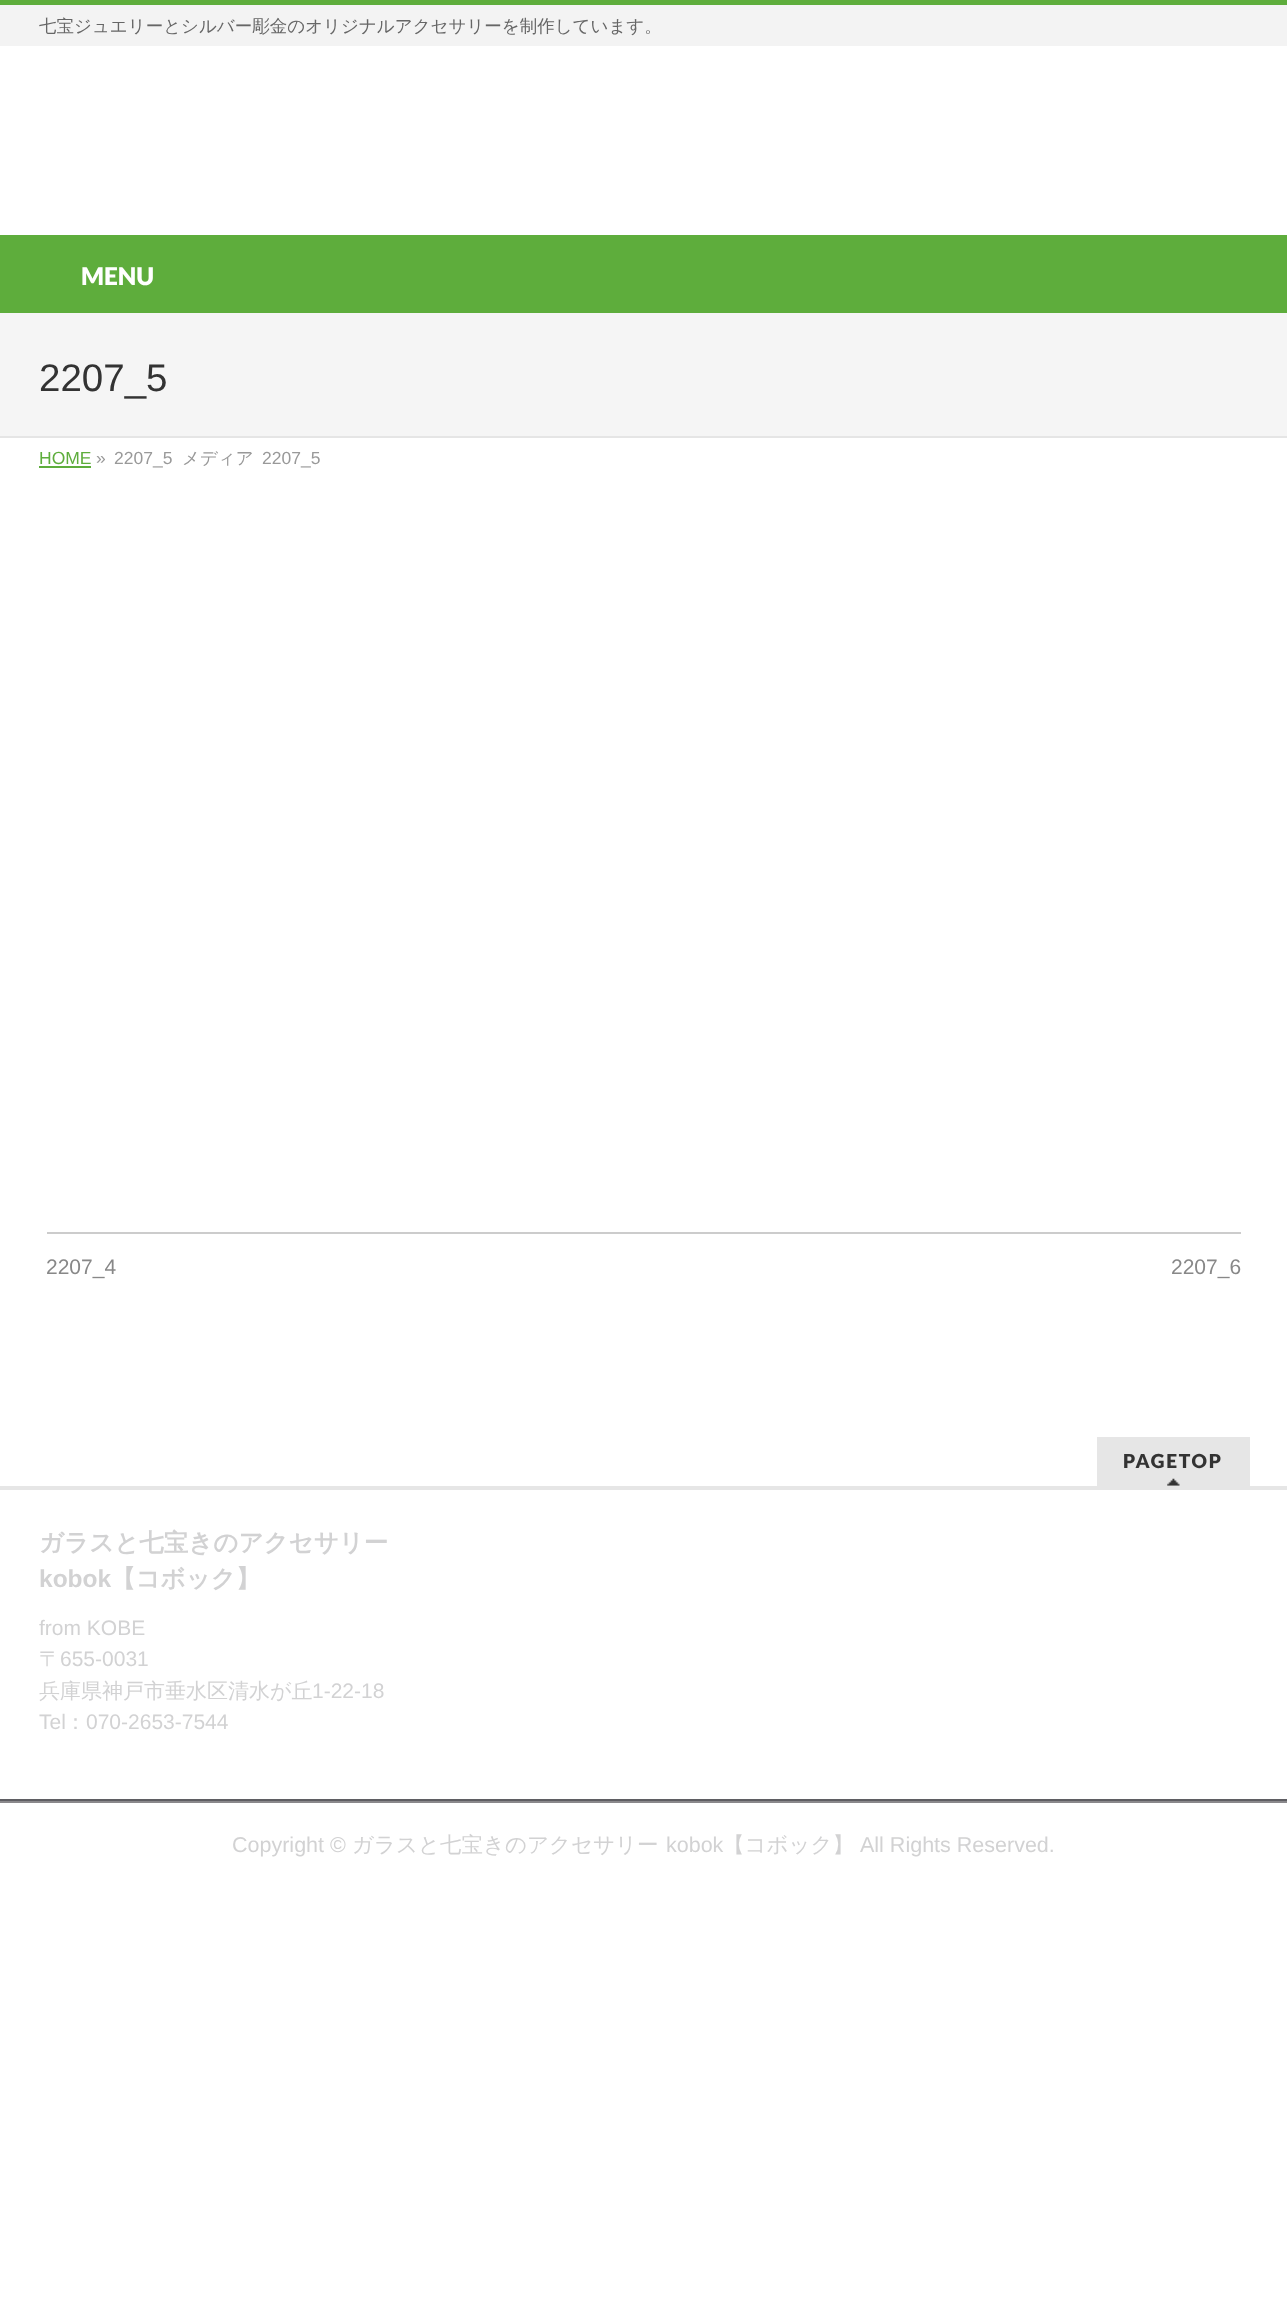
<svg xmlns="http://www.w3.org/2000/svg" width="1287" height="2316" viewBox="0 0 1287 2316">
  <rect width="100%" height="100%" fill="#ffffff"/>
  <rect x="0" y="5" width="1287" height="41" fill="#f3f3f3"/>
  <rect x="0" y="0" width="1287" height="5" fill="#5ead3c"/>
  <text x="39" y="32" font-family="WenQuanYi Zen Hei" font-size="17.5" font-weight="500" fill="#666666">七宝ジュエリーとシルバー彫金のオリジナルアクセサリーを制作しています。</text>
  <rect x="0" y="235" width="1287" height="78" fill="#5ead3c"/>
  <text x="81" y="285" font-family="Lato" font-size="24.5" font-weight="900" fill="#ffffff">MENU</text>
  <rect x="0" y="313" width="1287" height="123" fill="#f5f5f5"/>
  <rect x="0" y="436" width="1287" height="2" fill="#e5e5e5"/>
  <text x="39" y="391" font-family="Liberation Sans" font-size="38.5" fill="#333333">2207_5</text>
  <text x="39" y="464" font-family="Liberation Sans" font-size="17.5" fill="#5ead3c">HOME</text>
  <rect x="39" y="466" width="52" height="2" fill="#5ead3c"/>
  <text x="96" y="464" font-family="Liberation Sans" font-size="17.5" fill="#999999">»</text>
  <text x="114" y="464" font-family="Liberation Sans" font-size="17.5" fill="#999999">2207_5</text>
  <text x="182" y="464" font-family="WenQuanYi Zen Hei" font-size="17.5" font-weight="500" fill="#999999">メディア</text>
  <text x="262" y="464" font-family="Liberation Sans" font-size="17.5" fill="#999999">2207_5</text>
  <rect x="47" y="1232" width="1194" height="2" fill="#cccccc"/>
  <text x="46" y="1274" font-family="Liberation Sans" font-size="21" fill="#888888">2207_4</text>
  <text x="1171" y="1274" font-family="Liberation Sans" font-size="21" fill="#888888">2207_6</text>
  <rect x="1097" y="1437" width="153" height="49" fill="#e6e6e6"/>
  <image x="1167" y="1478" width="13" height="8" href="img1.png"/>
  <text x="1123" y="1468" font-family="Lato" font-size="19.25" font-weight="900" letter-spacing="1.75" fill="#333333">PAGETOP</text>
  <rect x="0" y="1486" width="1287" height="4" fill="#e6e6e6"/>
  <rect x="0" y="1799" width="1287" height="2" fill="#5f5e63"/>
  <text x="39" y="1551" font-family="WenQuanYi Zen Hei" font-size="24.5" font-weight="bold" fill="#d2d2d3">ガラスと七宝きのアクセサリー</text>
  <text x="39" y="1587" font-family="Liberation Sans" font-size="24.5" font-weight="bold" fill="#d2d2d3">kobok</text>
  <text x="111" y="1587" font-family="WenQuanYi Zen Hei" font-size="24.5" font-weight="bold" fill="#d2d2d3">【コボック】</text>
  <text x="39" y="1635" font-family="Liberation Sans" font-size="21" fill="#d2d2d3">from KOBE</text>
  <text x="39" y="1666" font-family="WenQuanYi Zen Hei" font-size="21" font-weight="500" fill="#d2d2d3">〒</text>
  <text x="60" y="1666" font-family="Liberation Sans" font-size="21" fill="#d2d2d3">655-0031</text>
  <text x="39" y="1698" font-family="WenQuanYi Zen Hei" font-size="21" font-weight="500" fill="#d2d2d3">兵庫県神戸市垂水区清水が丘</text>
  <text x="312" y="1698" font-family="Liberation Sans" font-size="21" fill="#d2d2d3">1-22-18</text>
  <text x="39" y="1729" font-family="Liberation Sans" font-size="21" fill="#d2d2d3">Tel</text>
  <text x="65" y="1729" font-family="WenQuanYi Zen Hei" font-size="21" font-weight="500" fill="#d2d2d3">：</text>
  <text x="86" y="1729" font-family="Liberation Sans" font-size="21" fill="#d2d2d3">070-2653-7544</text>
  <rect x="0" y="1801" width="1287" height="2" fill="#8a898c"/>
  <text x="232" y="1852" font-family="Liberation Sans" font-size="21.5" fill="#d2d2d3">Copyright ©</text>
  <text x="352" y="1852" font-family="WenQuanYi Zen Hei" font-size="21.5" font-weight="500" fill="#d2d2d3">ガラスと七宝きのアクセサリー</text>
  <text x="666" y="1852" font-family="Liberation Sans" font-size="21.5" fill="#d2d2d3">kobok</text>
  <text x="723" y="1852" font-family="WenQuanYi Zen Hei" font-size="21.5" font-weight="500" fill="#d2d2d3">【コボック】</text>
  <text x="860" y="1852" font-family="Liberation Sans" font-size="21.5" fill="#d2d2d3">All Rights Reserved.</text>
</svg>
